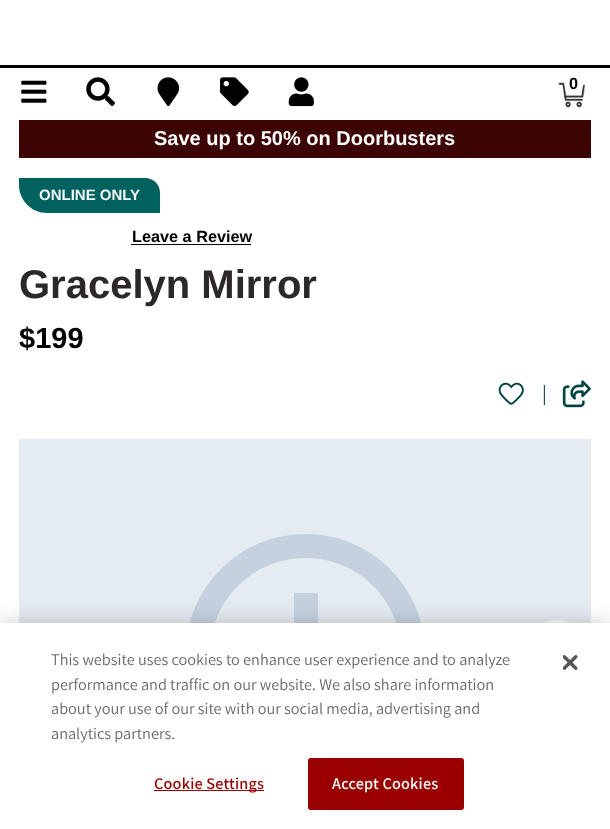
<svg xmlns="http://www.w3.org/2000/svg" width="610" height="829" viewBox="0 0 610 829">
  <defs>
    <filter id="blur1" x="-50%" y="-200%" width="200%" height="500%"><feGaussianBlur stdDeviation="11"/></filter>
  </defs>
  <rect width="100%" height="100%" fill="#ffffff"/>
  <rect x="0" y="65" width="610" height="3" fill="#020202"/>
  <image x="21" y="80" width="26" height="23" href="img1.png"/>
  <image x="86" y="77" width="29" height="30" href="img2.png"/>
  <image x="157" y="77" width="23" height="30" href="img3.png"/>
  <image x="220" y="77" width="29" height="30" href="img4.png"/>
  <image x="288" y="77" width="26" height="30" href="img5.png"/>
  <image x="558" y="82" width="27" height="26" href="img6.png"/>
  <text x="569" y="89" font-family="Liberation Sans" font-size="16.25" font-weight="bold" fill="#020202">0</text>
  <rect x="19" y="120" width="572" height="38" fill="#3c0403"/>
  <text x="154" y="145" font-family="Liberation Sans" font-size="20" font-weight="bold" fill="#ffffff">Save up to 50% on Doorbusters</text>
  <path d="M19 178H145C153.5 178 160 184.5 160 193V213H47C31.5 213 19 200.5 19 185Z" fill="#00615f"/>
  <text x="39" y="200" font-family="Liberation Sans" font-size="15" font-weight="bold" fill="#f5f9f9">ONLINE ONLY</text>
  <text x="132" y="242" font-family="Liberation Sans" font-size="16.25" font-weight="bold" fill="#020202">Leave a Review</text>
  <rect x="131" y="244" width="120" height="1" fill="#020202"/>
  <text x="19" y="298" font-family="Liberation Sans" font-size="40" font-weight="bold" fill="#2a2828">Gracelyn Mirror</text>
  <text x="19" y="348" font-family="Liberation Sans" font-size="29" font-weight="bold" fill="#020202">$199</text>
  <image x="498" y="382" width="26" height="23" href="img7.png"/>
  <text x="542" y="400" font-family="Assistant" font-size="20" fill="#004341">|</text>
  <image x="562" y="380" width="29" height="28" href="img8.png"/>
  <rect x="19" y="439" width="572" height="184" fill="#e4ebf1"/>
  <path d="M294 689H318V713H294ZM294 593H318V665H294ZM306 534C240 534 186 587 186 653C186 719 240 772 306 772C371 772 425 719 425 653C425 587 371 534 306 534ZM306 749C253 749 210 706 210 653C210 600 253 558 306 558C358 558 401 600 401 653C401 706 358 749 306 749Z" fill="#c6d1e0"/>
  <rect x="524" y="620" width="67" height="68" rx="33.5" fill="#fafbfc"/>
  <rect x="0" y="623" width="610" height="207" fill="#000000" fill-opacity="0.2" filter="url(#blur1)"/>
  <rect x="0" y="623" width="610" height="206" fill="#ffffff"/>
  <text x="51" y="665" font-family="Assistant" font-size="16.25" fill="#696969">This website uses cookies to enhance user experience and to analyze</text>
  <text x="51" y="690" font-family="Assistant" font-size="16.25" fill="#696969">performance and traffic on our website. We also share information</text>
  <text x="51" y="714" font-family="Assistant" font-size="16.25" fill="#696969">about your use of our site with our social media, advertising and</text>
  <text x="51" y="739" font-family="Assistant" font-size="16.25" fill="#696969">analytics partners.</text>
  <rect x="154" y="790" width="110" height="1" fill="#990000"/>
  <text x="154" y="789" font-family="Assistant" font-size="16.25" font-weight="600" letter-spacing="0.2" fill="#990000">Cookie Settings</text>
  <rect x="308.5" y="758.5" width="155" height="51" rx="2" fill="#990000" stroke="#990000"/>
  <text x="332" y="789" font-family="Assistant" font-size="16.25" font-weight="600" letter-spacing="0.2" fill="#ffffff">Accept Cookies</text>
  <image x="563" y="655" width="15" height="15" href="img9.png"/>
</svg>
